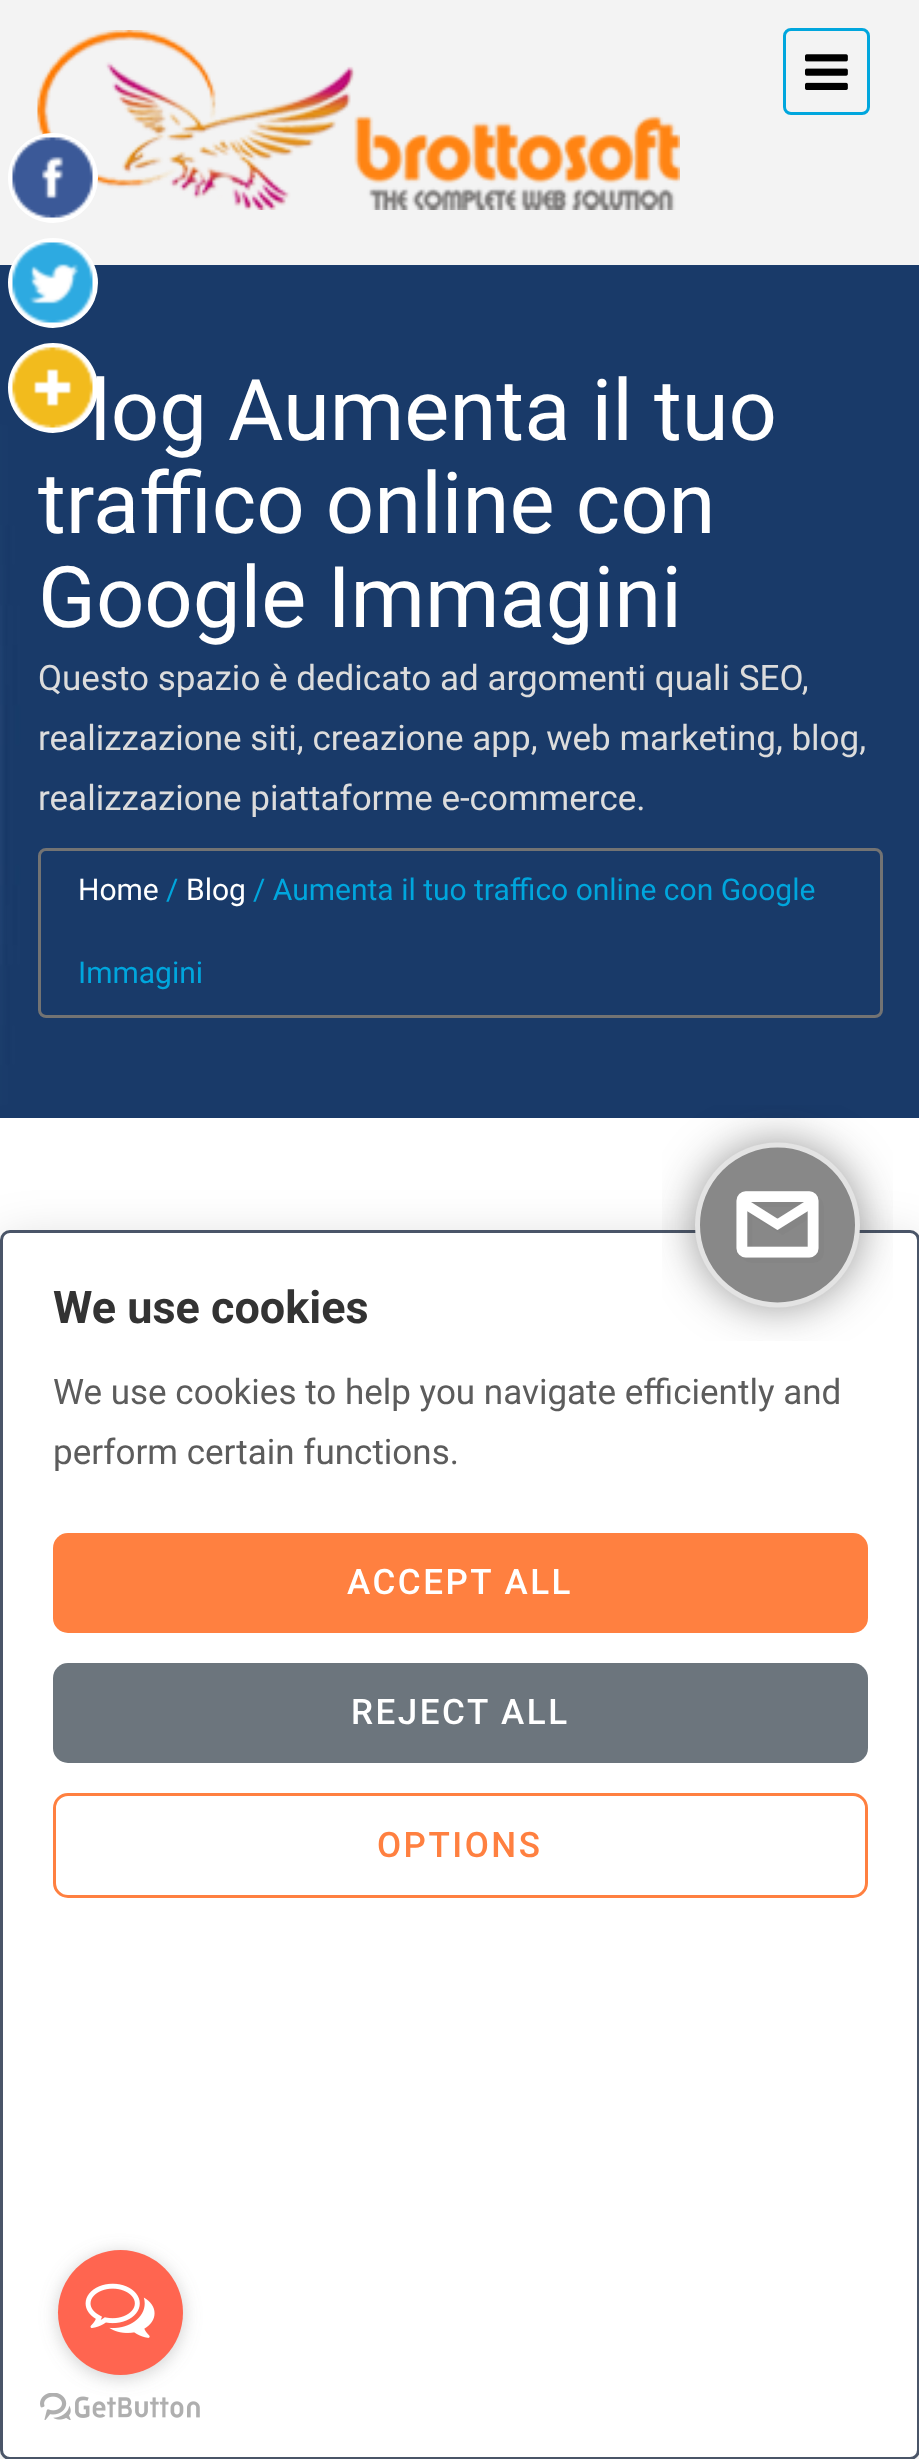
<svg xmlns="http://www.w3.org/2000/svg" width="919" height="2459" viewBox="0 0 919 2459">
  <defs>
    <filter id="blur1" x="-50%" y="-200%" width="200%" height="500%"><feGaussianBlur stdDeviation="25"/></filter>
    <filter id="blur2" x="-50%" y="-200%" width="200%" height="500%"><feGaussianBlur stdDeviation="9"/></filter>
  </defs>
  <rect width="100%" height="100%" fill="#f3f3f3"/>
  <image x="37" y="30" width="643" height="180" href="img4.png"/>
  <circle cx="53" cy="178" r="45" fill="#ffffff"/>
  <image x="12" y="137" width="81" height="81" href="img1.png"/>
  <image x="0" y="265" width="919" height="853" href="img6.png"/>
  <rect x="0" y="265" width="919" height="853" fill="#000000" fill-opacity="0.1"/>
  <circle cx="53" cy="283" r="45" fill="#ffffff"/>
  <image x="12" y="242" width="81" height="81" href="img2.png"/>
  <circle cx="53" cy="388" r="45" fill="#ffffff"/>
  <image x="12" y="347" width="81" height="81" href="img3.png"/>
  <rect x="784.5" y="29.5" width="84" height="84" rx="6.5" fill="none" stroke="#00a6dd" stroke-width="3"/>
  <image x="805" y="54" width="43" height="36" href="img5.png"/>
  <text x="90" y="440" font-family="Roboto" font-size="85" fill="#ffffff">log Aumenta il tuo</text>
  <text x="38" y="533" font-family="Roboto" font-size="85" fill="#ffffff">traffico online con</text>
  <text x="38" y="627" font-family="Roboto" font-size="85" fill="#ffffff">Google Immagini</text>
  <text x="38" y="690" font-family="Roboto" font-size="35" fill="#dcdcdc">Questo spazio è dedicato ad argomenti quali SEO,</text>
  <text x="38" y="750" font-family="Roboto" font-size="35" fill="#dcdcdc">realizzazione siti, creazione app, web marketing, blog,</text>
  <text x="38" y="810" font-family="Roboto" font-size="35" fill="#dcdcdc">realizzazione piattaforme e-commerce.</text>
  <rect x="39.5" y="849.5" width="842" height="167" rx="6.5" fill="none" stroke="#737373" stroke-width="3"/>
  <text x="78" y="900" font-family="Roboto" font-size="30" fill="#ffffff">Home</text>
  <text x="166" y="900" font-family="Roboto" font-size="30" fill="#00a6dd">/</text>
  <text x="186" y="900" font-family="Roboto" font-size="30" fill="#ffffff">Blog</text>
  <text x="253" y="900" font-family="Roboto" font-size="30" fill="#00a6dd">/ Aumenta il tuo traffico online con Google</text>
  <text x="78" y="983" font-family="Roboto" font-size="30" fill="#00a6dd">Immagini</text>
  <rect x="0" y="1118" width="919" height="1341" fill="#ffffff"/>
  <rect x="0" y="1240" width="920" height="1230" rx="10" fill="#000000" fill-opacity="0.15" filter="url(#blur1)"/>
  <rect x="1.5" y="1231.5" width="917" height="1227" rx="8.5" fill="#ffffff" stroke="#4a5568" stroke-width="3"/>
  <image x="662" y="1118" width="231" height="223" href="img7.png"/>
  <text x="53" y="1323" font-family="Roboto" font-size="45" font-weight="bold" fill="#333333">We use cookies</text>
  <text x="53" y="1404" font-family="Roboto" font-size="35" fill="#5c5c5c">We use cookies to help you navigate efficiently and</text>
  <text x="53" y="1464" font-family="Roboto" font-size="35" fill="#5c5c5c">perform certain functions.</text>
  <rect x="53" y="1533" width="815" height="100" rx="15" fill="#ff8040"/>
  <text x="347" y="1594" font-family="Roboto" font-size="35" font-weight="500" letter-spacing="2.5" fill="#ffffff">ACCEPT ALL</text>
  <rect x="53" y="1663" width="815" height="100" rx="15" fill="#6c757d"/>
  <text x="351" y="1724" font-family="Roboto" font-size="35" font-weight="500" letter-spacing="2.5" fill="#ffffff">REJECT ALL</text>
  <rect x="54.5" y="1794.5" width="812" height="102" rx="13.5" fill="none" stroke="#ff8040" stroke-width="3"/>
  <text x="377" y="1857" font-family="Roboto" font-size="35" font-weight="500" letter-spacing="2.5" fill="#ff8040">OPTIONS</text>
  <image x="40" y="2393" width="160" height="27" href="img9.png"/>
  <rect x="58" y="2253" width="125" height="125" rx="62.5" fill="#888888" fill-opacity="0.4" filter="url(#blur2)"/>
  <circle cx="120.5" cy="2312.5" r="62.5" fill="#ff6550"/>
  <image x="85" y="2283" width="70" height="55" href="img8.png"/>
</svg>
